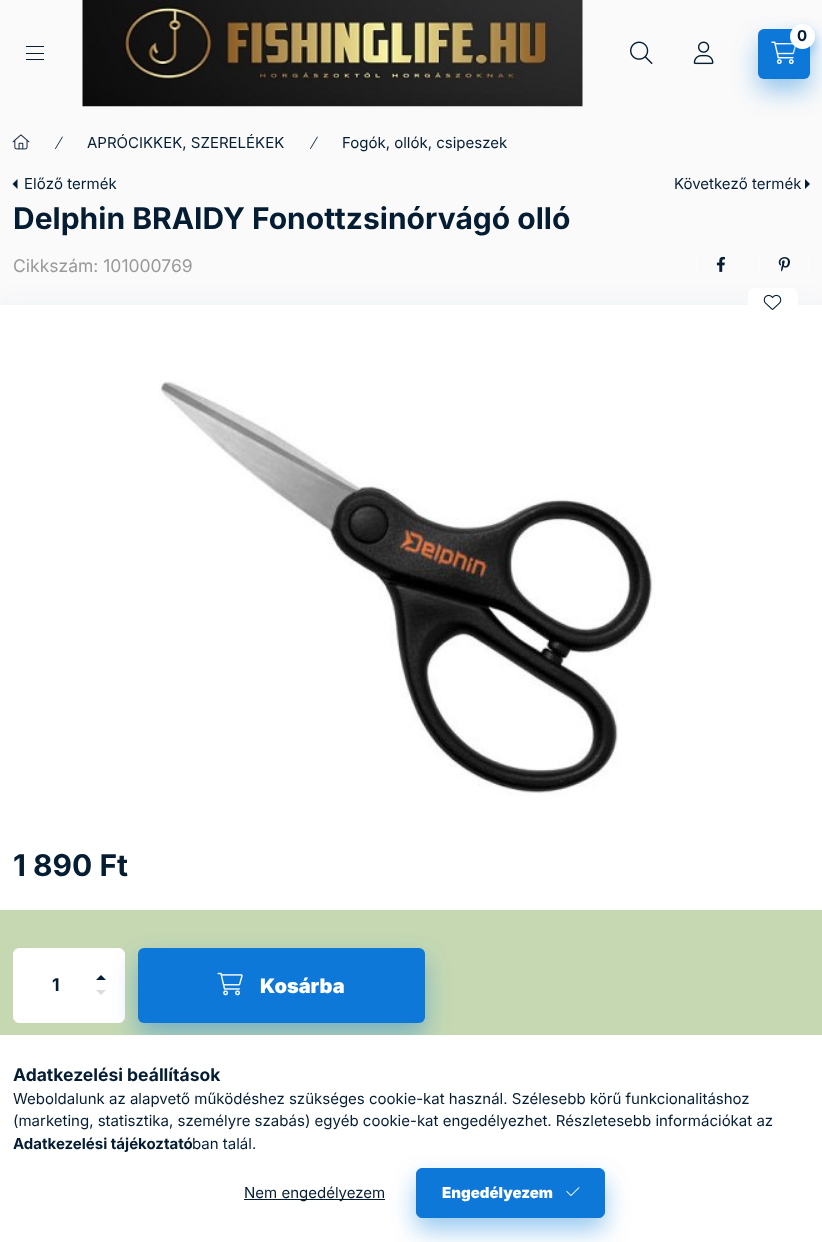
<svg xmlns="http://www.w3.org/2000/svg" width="822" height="1242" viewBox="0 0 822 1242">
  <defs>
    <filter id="blur1" x="-50%" y="-200%" width="200%" height="500%"><feGaussianBlur stdDeviation="12.5"/></filter>
    <filter id="blur2" x="-50%" y="-200%" width="200%" height="500%"><feGaussianBlur stdDeviation="6"/></filter>
  </defs>
  <rect width="100%" height="100%" fill="#fafafa"/>
  <rect x="26" y="46" width="18" height="1" fill="#051d33"/>
  <rect x="26" y="53" width="18" height="1" fill="#051d33"/>
  <rect x="26" y="59" width="18" height="1" fill="#051d33"/>
  <image x="82" y="0" width="501" height="107" href="img1.png"/>
  <rect x="758" y="41" width="52" height="50" rx="6" fill="#0e78d9" fill-opacity="0.4" filter="url(#blur1)"/>
  <rect x="758" y="29" width="52" height="50" rx="6" fill="#0e78d9"/>
  <image x="771" y="41" width="25" height="23" href="img2.png"/>
  <rect x="790" y="30" width="25" height="25" rx="12.5" fill="#0e78d9" fill-opacity="0.4" filter="url(#blur2)"/>
  <circle cx="802.5" cy="36.5" r="12.5" fill="#ffffff"/>
  <text x="797" y="41" font-family="Inter" font-size="15" font-weight="bold" fill="#051d33">0</text>
  <image x="630" y="41" width="23" height="23" href="img3.png"/>
  <image x="693" y="41" width="21" height="24" href="img4.png"/>
  <image x="12" y="134" width="18" height="16" href="img5.png"/>
  <image x="55" y="136" width="8" height="13" href="img6.png"/>
  <text x="87" y="148" font-family="Inter" font-size="15" fill="#051d33">APRÓCIKKEK, SZERELÉKEK</text>
  <image x="310" y="136" width="8" height="13" href="img6.png"/>
  <text x="342" y="148" font-family="Inter" font-size="15" fill="#051d33">Fogók, ollók, csipeszek</text>
  <path d="M17.5 189V179L12.5 184Z" fill="#051d33"/>
  <text x="24" y="189" font-family="Inter" font-size="15" fill="#051d33">Előző termék</text>
  <text x="674" y="189" font-family="Inter" font-size="15" fill="#051d33">Következő termék</text>
  <path d="M805 189V179L810 184Z" fill="#051d33"/>
  <text x="13" y="229" font-family="Inter" font-size="30" font-weight="bold" fill="#051d33">Delphin BRAIDY Fonottzsinórvágó olló</text>
  <rect x="0" y="305" width="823" height="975" fill="#0e78d9" fill-opacity="0.05" filter="url(#blur1)"/>
  <text x="13" y="272" font-family="Inter" font-size="17.5" fill="#999999">Cikkszám: 101000769</text>
  <rect x="696.5" y="250.5" width="49" height="29" rx="5.5" fill="none" stroke="#fffbfb"/>
  <image x="716" y="256" width="9" height="16" href="img7.png"/>
  <rect x="759.5" y="250.5" width="49" height="29" rx="5.5" fill="none" stroke="#fffbfb"/>
  <image x="778" y="257" width="12" height="15" href="img8.png"/>
  <rect x="0" y="305" width="822" height="605" fill="#ffffff"/>
  <rect x="748" y="288" width="50" height="30" rx="6" fill="#ffffff"/>
  <image x="763" y="294" width="19" height="16" href="img9.png"/>
  <image x="159" y="380" width="497" height="416" href="img10.png"/>
  <text x="13" y="876" font-family="Inter" font-size="30" font-weight="bold" fill="#051d33">1 890 Ft</text>
  <rect x="0" y="910" width="822" height="125" fill="#c5d8b2"/>
  <rect x="13.5" y="948.5" width="111" height="74" rx="5.5" fill="#ffffff" stroke="#fffbfb"/>
  <text x="52" y="991" font-family="Inter" font-size="17.5" font-weight="bold" fill="#051d33">1</text>
  <path d="M106 980H96L101 975Z" fill="#051d33"/>
  <path d="M96 990H106L101 995Z" fill="#dddddd"/>
  <rect x="138" y="960" width="287" height="75" rx="6" fill="#0e78d9" fill-opacity="0.4" filter="url(#blur1)"/>
  <rect x="138" y="948" width="287" height="75" rx="6" fill="#0e78d9"/>
  <image x="217" y="972" width="26" height="24" href="img11.png"/>
  <text x="260" y="993" font-family="Inter" font-size="20" font-weight="900" fill="#ffffff">Kosárba</text>
  <rect x="0" y="1036" width="822" height="206" fill="#ffffff"/>
  <rect x="0" y="1035" width="822" height="1" fill="#fffbfb"/>
  <text x="13" y="1081" font-family="Inter" font-size="17.5" font-weight="bold" fill="#051d33">Adatkezelési beállítások</text>
  <text x="13" y="1104" font-family="Inter" font-size="15" fill="#051d33">Weboldalunk az alapvető működéshez szükséges cookie-kat használ. Szélesebb körű funkcionalitáshoz</text>
  <text x="13" y="1126" font-family="Inter" font-size="15" fill="#051d33">(marketing, statisztika, személyre szabás) egyéb cookie-kat engedélyezhet. Részletesebb információkat az</text>
  <text x="13" y="1149" font-family="Inter" font-size="15" font-weight="bold" fill="#051d33">Adatkezelési tájékoztató</text>
  <text x="192" y="1149" font-family="Inter" font-size="15" fill="#051d33">ban talál.</text>
  <rect x="244" y="1199" width="141" height="1" fill="#051d33"/>
  <text x="244" y="1198" font-family="Inter" font-size="15" fill="#051d33">Nem engedélyezem</text>
  <rect x="416" y="1180" width="189" height="50" rx="6" fill="#0e78d9" fill-opacity="0.4" filter="url(#blur1)"/>
  <rect x="416.5" y="1168.5" width="188" height="49" rx="5.5" fill="#0e78d9" stroke="#0e78d9"/>
  <text x="442" y="1198" font-family="Inter" font-size="15" font-weight="900" fill="#ffffff">Engedélyezem</text>
  <image x="566" y="1187" width="14" height="9" href="img12.png"/>
</svg>
